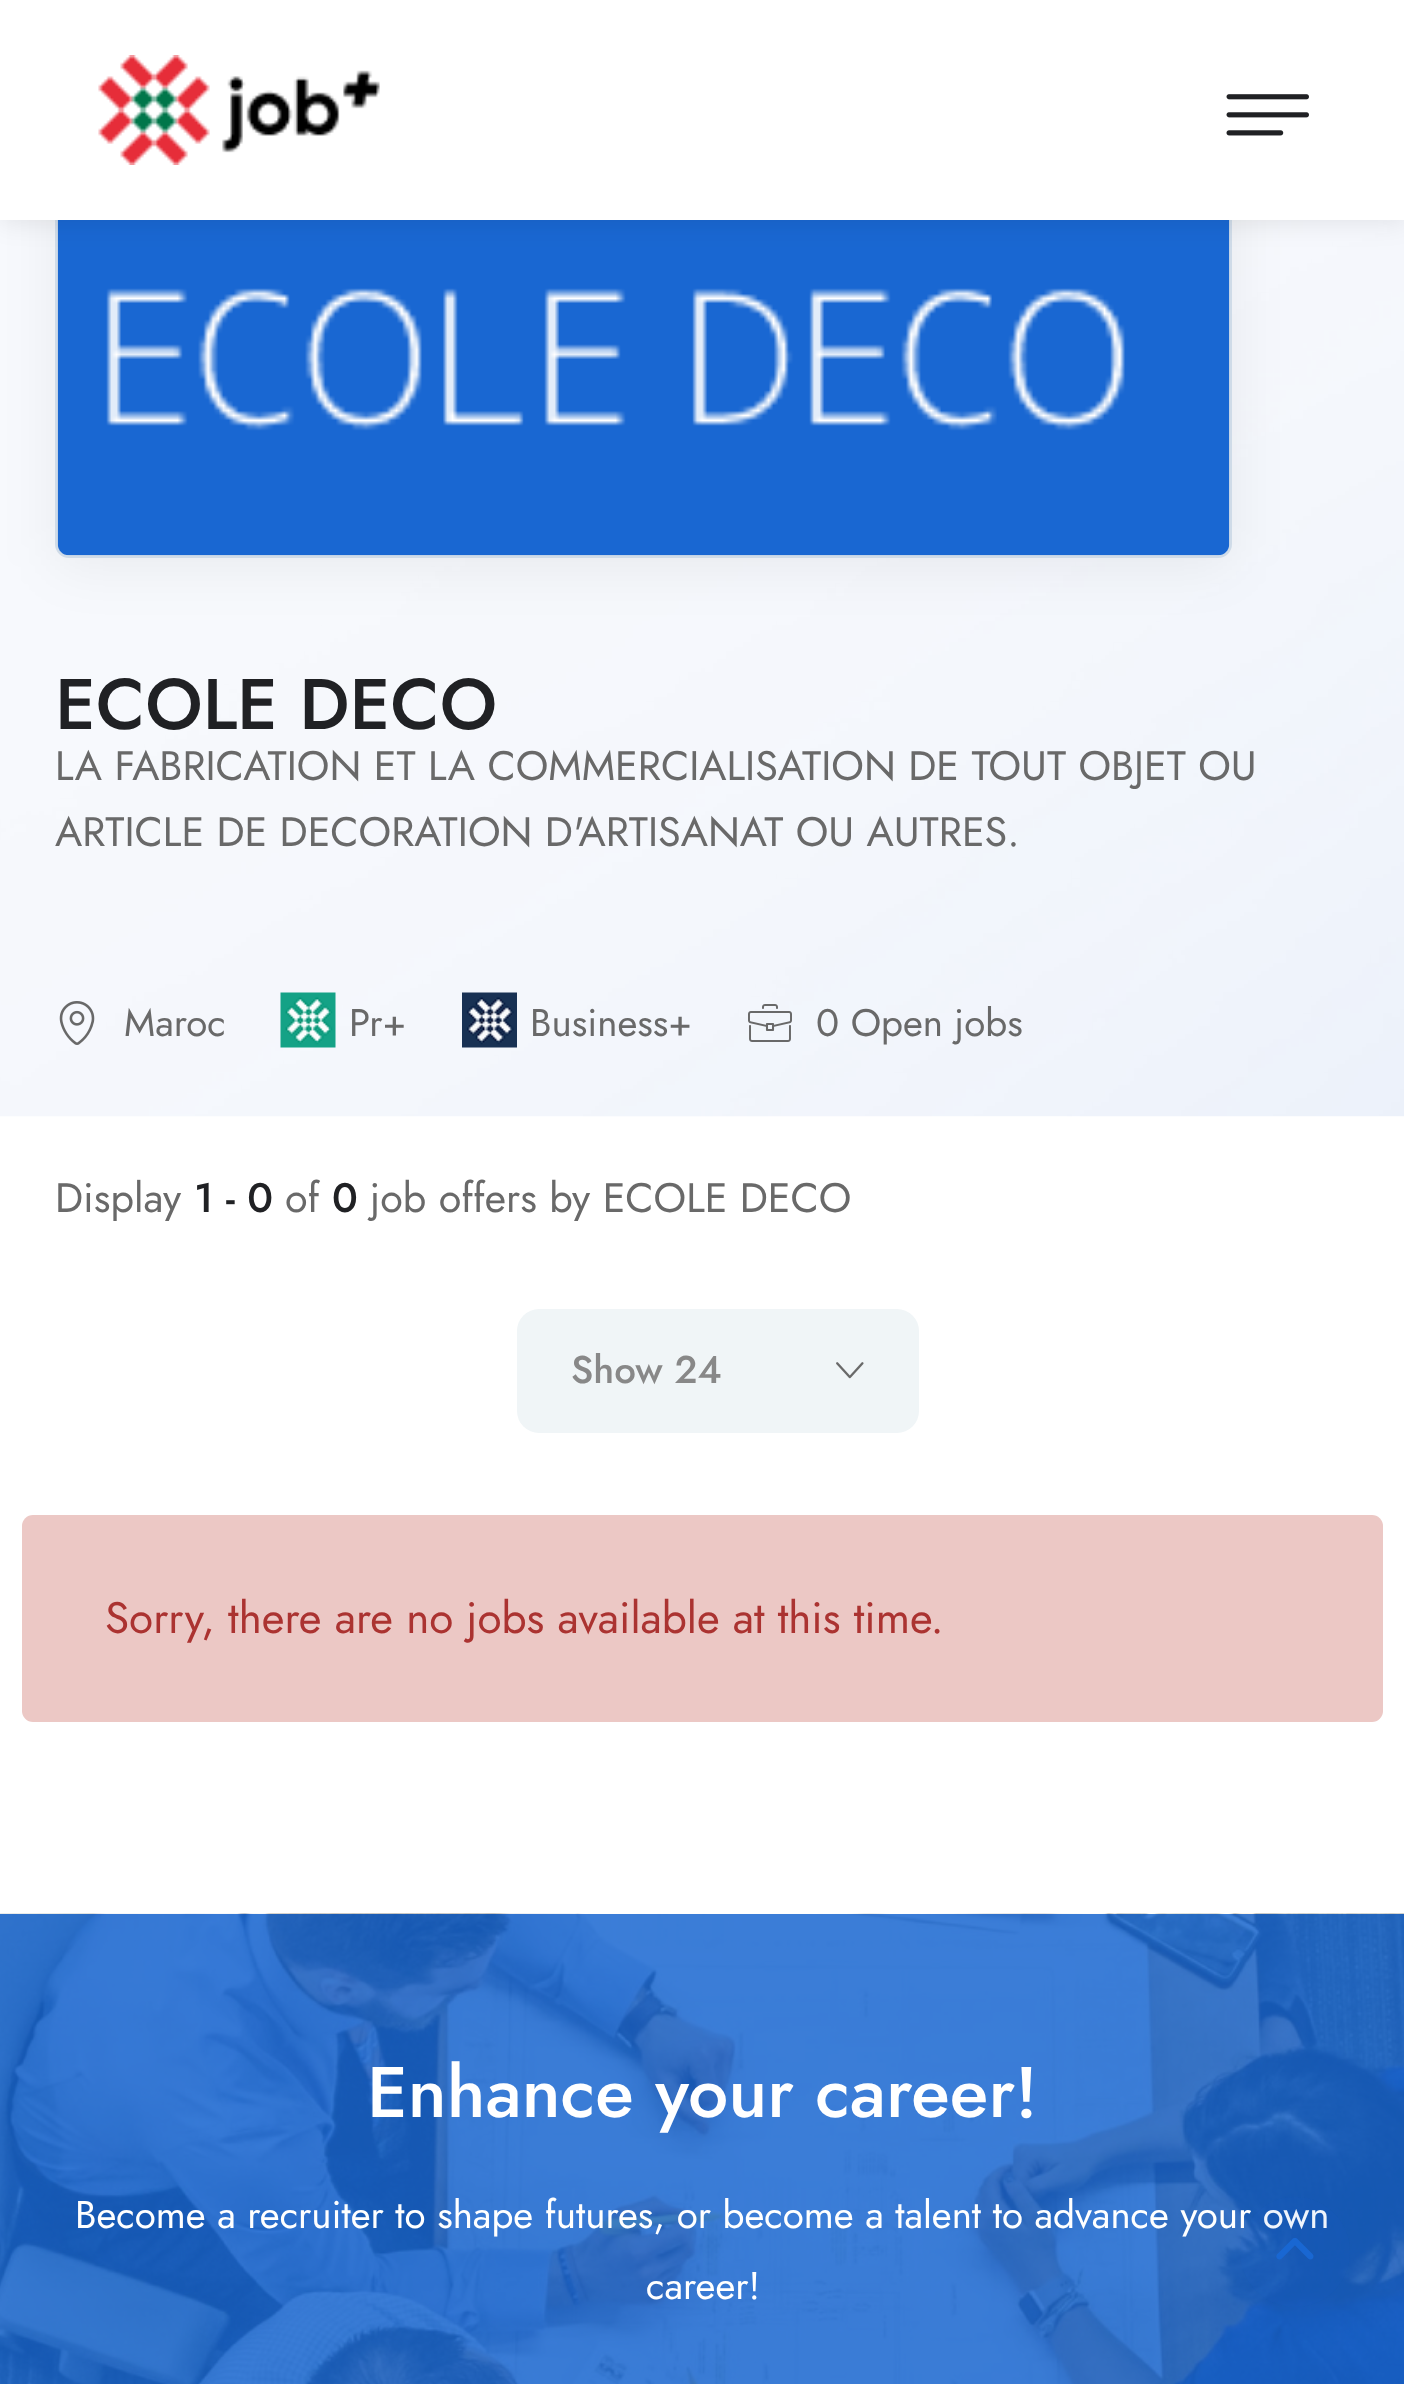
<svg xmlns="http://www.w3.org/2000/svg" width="1404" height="2384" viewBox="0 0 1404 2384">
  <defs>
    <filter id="blur1" x="-50%" y="-200%" width="200%" height="500%"><feGaussianBlur stdDeviation="27.5"/></filter>
    <filter id="blur2" x="-50%" y="-200%" width="200%" height="500%"><feGaussianBlur stdDeviation="14"/></filter>
  </defs>
  <rect width="100%" height="100%" fill="#ffffff"/>
  <image x="0" y="220" width="1404" height="897" href="img3.png"/>
  <rect x="55" y="154" width="1177" height="413" rx="14" fill="#000000" fill-opacity="0.06" filter="url(#blur1)"/>
  <rect x="56.5" y="147.5" width="1174" height="409" rx="12.5" fill="none" stroke="#cfdbe8" stroke-width="3"/>
  <image x="57" y="220" width="1173" height="336" href="img4.png"/>
  <rect x="0" y="0" width="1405" height="220" fill="#000000" fill-opacity="0.1" filter="url(#blur2)"/>
  <rect x="0" y="0" width="1404" height="220" fill="#ffffff"/>
  <image x="98" y="55" width="282" height="110" href="img1.png"/>
  <image x="1226" y="94" width="83" height="42" href="img2.png"/>
  <text x="55" y="729" font-family="Jost" font-size="71.5" font-weight="500" fill="#202124">ECOLE DECO</text>
  <text x="55" y="780" font-family="Jost" font-size="41.25" fill="#696969">LA FABRICATION ET LA COMMERCIALISATION DE TOUT OBJET OU</text>
  <text x="55" y="846" font-family="Jost" font-size="41.25" fill="#696969">ARTICLE DE DECORATION D'ARTISANAT OU AUTRES.</text>
  <image x="59" y="1001" width="36" height="44" href="img5.png"/>
  <text x="124" y="1036" font-family="Jost" font-size="38.5" fill="#696969">Maroc</text>
  <image x="280" y="992" width="56" height="56" href="img6.png"/>
  <text x="349" y="1036" font-family="Jost" font-size="38.5" fill="#696969">Pr+</text>
  <image x="462" y="992" width="55" height="56" href="img7.png"/>
  <text x="530" y="1036" font-family="Jost" font-size="38.5" fill="#696969">Business+</text>
  <image x="748" y="1004" width="44" height="38" href="img8.png"/>
  <text x="816" y="1036" font-family="Jost" font-size="38.5" fill="#696969">0 Open jobs</text>
  <text x="55" y="1212" font-family="Jost" font-size="41.25" fill="#696969">Display</text>
  <text x="194" y="1212" font-family="Jost" font-size="41.25" font-weight="500" fill="#202124">1 - 0</text>
  <text x="285" y="1212" font-family="Jost" font-size="41.25" fill="#696969">of</text>
  <text x="332" y="1212" font-family="Jost" font-size="41.25" font-weight="500" fill="#202124">0</text>
  <text x="370" y="1212" font-family="Jost" font-size="41.25" fill="#696969">job offers by ECOLE DECO</text>
  <rect x="517" y="1309" width="402" height="124" rx="22" fill="#f0f5f7"/>
  <text x="571" y="1383" font-family="Jost" font-size="38.5" font-weight="500" fill="#888888">Show 24</text>
  <image x="836" y="1362" width="28" height="17" href="img9.png"/>
  <rect x="22" y="1515" width="1361" height="207" rx="11" fill="#ecc8c5"/>
  <text x="105" y="1633" font-family="Jost" font-size="44" fill="#ab3331">Sorry, there are no jobs available at this time.</text>
  <image x="0" y="1913" width="1404" height="471" href="img10.png"/>
  <text x="367" y="2117" font-family="Jost" font-size="71.5" font-weight="500" fill="#ffffff">Enhance your career!</text>
  <text x="75" y="2228" font-family="Jost" font-size="38.5" fill="#ffffff">Become a recruiter to shape futures, or become a talent to advance your own</text>
  <text x="646" y="2299" font-family="Jost" font-size="38.5" fill="#ffffff">career!</text>
  <circle cx="1295" cy="2252" r="55" fill="#1967d2" fill-opacity="0.07"/>
  <image x="1276" y="2238" width="38" height="22" href="img11.png"/>
</svg>
